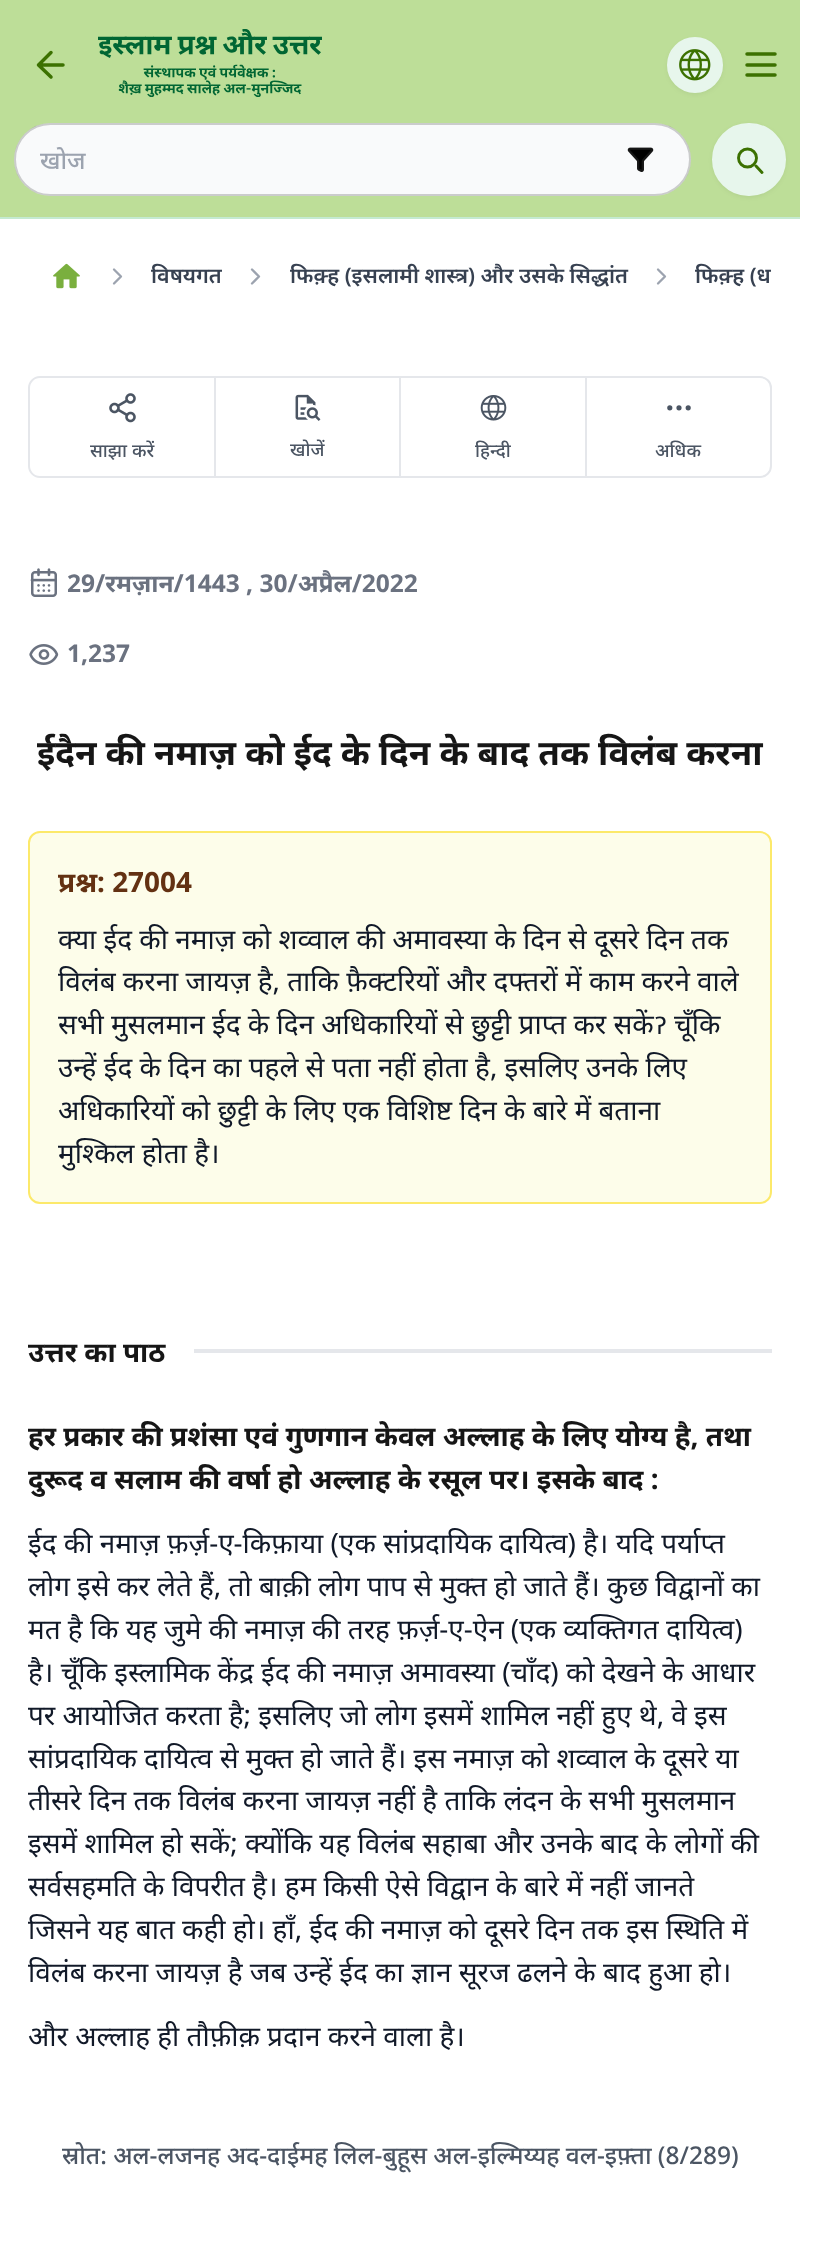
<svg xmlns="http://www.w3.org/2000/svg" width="825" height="2244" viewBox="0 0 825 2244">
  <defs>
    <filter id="blur1" x="-50%" y="-200%" width="200%" height="500%"><feGaussianBlur stdDeviation="2"/></filter>
    <clipPath id="clip1"><rect x="40" y="144" width="569" height="33"/></clipPath>
    <clipPath id="clip2"><rect x="28" y="1502" width="735" height="577"/></clipPath>
  </defs>
  <rect width="100%" height="100%" fill="#ffffff"/>
  <rect x="0" y="0" width="800" height="217" fill="#bdde98"/>
  <rect x="0" y="217" width="800" height="2" fill="#c4ead1"/>
  <path d="M51 77L38.5 65L51 52.5M63 65H38.5" fill="none" stroke="#3c7101" stroke-width="3.5" stroke-linecap="round" stroke-linejoin="round"/>
  <image x="98" y="29" width="224" height="68" href="img1.png"/>
  <rect x="667" y="39" width="56" height="56" rx="28" fill="#000000" fill-opacity="0.05" filter="url(#blur1)"/>
  <circle cx="695" cy="65" r="27" fill="#e7f6ec" stroke="#e7f6ec" stroke-width="2"/>
  <image x="679" y="49" width="32" height="32" href="img2.png"/>
  <path d="M747 65H775M747 75H775M747 54H775" fill="none" stroke="#3c7101" stroke-width="3.5" stroke-linecap="round" stroke-linejoin="round"/>
  <rect x="14" y="123" width="677" height="73" rx="36.5" fill="#f9fafb"/>
  <rect x="15" y="124" width="675" height="71" rx="35.5" fill="none" stroke="#161616" stroke-opacity="0.2" stroke-width="2"/>
  <g clip-path="url(#clip1)">
    <text x="40" y="169" font-family="Noto Sans" font-size="24.5" font-weight="500" fill="#9ca3af">खोज</text>
  </g>
  <image x="627" y="147" width="27" height="25" href="img3.png"/>
  <rect x="712" y="124" width="74" height="74" rx="37" fill="#000000" fill-opacity="0.05" filter="url(#blur1)"/>
  <rect x="713" y="124" width="72" height="71" rx="35.5" fill="#e7f6ec" stroke="#e7f6ec" stroke-width="2"/>
  <path d="M762 172.5L756 166" fill="none" stroke="#3c7101" stroke-width="2.9" stroke-linecap="round" stroke-linejoin="round"/>
  <circle cx="747.5" cy="158" r="9" fill="none" stroke="#3c7101" stroke-width="2.9"/>
  <image x="53" y="263" width="27" height="26" href="img4.png"/>
  <path d="M114 283.5L121 276.5L114 269.5" fill="none" stroke="#9ca3af" stroke-width="2.3" stroke-linecap="round" stroke-linejoin="round"/>
  <text x="151" y="283" font-family="Noto Sans" font-size="21.5" font-weight="600" fill="#374151">विषयगत</text>
  <path d="M252 283.5L259 276.5L252 269.5" fill="none" stroke="#9ca3af" stroke-width="2.3" stroke-linecap="round" stroke-linejoin="round"/>
  <text x="290" y="283" font-family="Noto Sans" font-size="21.5" font-weight="600" fill="#374151">फिक़्ह (इसलामी शास्त्र) और उसके सिद्धांत</text>
  <path d="M658 283.5L665 276.5L658 269.5" fill="none" stroke="#9ca3af" stroke-width="2.3" stroke-linecap="round" stroke-linejoin="round"/>
  <text x="695" y="283" font-family="Noto Sans" font-size="21.5" font-weight="600" fill="#374151">फिक़्ह (ध</text>
  <path d="M40 376H214V478H40C33 478 28 472 28 466V388C28 382 33 376 40 376ZM40 378H214V476H40C34 476 30 471 30 466V388C30 383 34 378 40 378Z" fill="#e5e7eb" fill-rule="evenodd"/>
  <image x="109" y="393" width="27" height="30" href="img5.png"/>
  <text x="90" y="457" font-family="Noto Sans" font-size="18.5" font-weight="500" fill="#4b5563">साझा करें</text>
  <rect x="214" y="376" width="371" height="2" fill="#e5e7eb"/>
  <rect x="214" y="476" width="371" height="2" fill="#e5e7eb"/>
  <rect x="214" y="376" width="2" height="102" fill="#e5e7eb"/>
  <image x="295" y="394" width="26" height="27" href="img6.png"/>
  <text x="290" y="456" font-family="Noto Sans" font-size="18.5" font-weight="500" fill="#4b5563">खोजें</text>
  <rect x="399" y="376" width="2" height="102" fill="#e5e7eb"/>
  <image x="480" y="395" width="27" height="26" href="img7.png"/>
  <text x="475" y="457" font-family="Noto Sans" font-size="18.5" font-weight="500" fill="#4b5563">हिन्दी</text>
  <path d="M586 377H760C766 377 771 382 771 388V466C771 472 766 477 760 477H586Z" fill="none" stroke="#e5e7eb" stroke-width="2"/>
  <circle cx="679" cy="407.8" r="1.3" fill="none" stroke="#4b5563" stroke-width="2.6"/>
  <circle cx="688.2" cy="407.8" r="1.3" fill="none" stroke="#4b5563" stroke-width="2.6"/>
  <circle cx="669.8" cy="407.8" r="1.3" fill="none" stroke="#4b5563" stroke-width="2.6"/>
  <text x="655" y="457" font-family="Noto Sans" font-size="18.5" font-weight="500" fill="#4b5563">अधिक</text>
  <image x="30" y="568" width="27" height="29" href="img8.png"/>
  <text x="67" y="592" font-family="Noto Sans" font-size="24.5" font-weight="bold" fill="#6b7280">29/रमज़ान/1443 , 30/अप्रैल/2022</text>
  <image x="29" y="644" width="30" height="21" href="img9.png"/>
  <text x="67" y="662" font-family="Noto Sans" font-size="24.5" font-weight="bold" fill="#6b7280">1,237</text>
  <text x="37" y="765" font-family="Noto Sans" font-size="35" font-weight="bold" fill="#161616">ईदैन की नमाज़ को ईद के दिन के बाद तक विलंब करना</text>
  <rect x="29" y="832" width="742" height="371" rx="11" fill="#fdfdea" stroke="#fce96a" stroke-width="2"/>
  <text x="58" y="892" font-family="Noto Sans" font-size="27.9" font-weight="bold" fill="#633112">प्रश्न: 27004</text>
  <text x="58" y="949" font-family="Noto Sans" font-size="27.9" fill="#111928">क्या ईद की नमाज़ को शव्वाल की अमावस्या के दिन से दूसरे दिन तक</text>
  <text x="58" y="991" font-family="Noto Sans" font-size="27.9" fill="#111928">विलंब करना जायज़ है, ताकि फ़ैक्टरियों और दफ्तरों में काम करने वाले</text>
  <text x="58" y="1034" font-family="Noto Sans" font-size="27.9" fill="#111928">सभी मुसलमान ईद के दिन अधिकारियों से छुट्टी प्राप्त कर सकेंॽ चूँकि</text>
  <text x="58" y="1077" font-family="Noto Sans" font-size="27.9" fill="#111928">उन्हें ईद के दिन का पहले से पता नहीं होता है, इसलिए उनके लिए</text>
  <text x="58" y="1120" font-family="Noto Sans" font-size="27.9" fill="#111928">अधिकारियों को छुट्टी के लिए एक विशिष्ट दिन के बारे में बताना</text>
  <text x="58" y="1163" font-family="Noto Sans" font-size="27.9" fill="#111928">मुश्किल होता है।</text>
  <text x="28" y="1362" font-family="Noto Sans" font-size="27.9" font-weight="bold" fill="#161616">उत्तर का पाठ</text>
  <rect x="194" y="1349" width="578" height="4" fill="#e5e7eb"/>
  <text x="28" y="1446" font-family="Noto Sans" font-size="27.9" font-weight="bold" fill="#161616">हर प्रकार की प्रशंसा एवं गुणगान केवल अल्लाह के लिए योग्य है, तथा</text>
  <text x="28" y="1489" font-family="Noto Sans" font-size="27.9" font-weight="bold" fill="#161616">दुरूद व सलाम की वर्षा हो अल्लाह के रसूल पर। इसके बाद :</text>
  <g clip-path="url(#clip2)">
    <text x="28" y="1553" font-family="Noto Sans" font-size="27.9" fill="#111928">ईद की नमाज़ फ़र्ज़-ए-किफ़ाया (एक सांप्रदायिक दायित्व) है। यदि पर्याप्त</text>
    <text x="28" y="1596" font-family="Noto Sans" font-size="27.9" fill="#111928">लोग इसे कर लेते हैं, तो बाक़ी लोग पाप से मुक्त हो जाते हैं। कुछ विद्वानों का</text>
  </g>
  <text x="28" y="1639" font-family="Noto Sans" font-size="27.9" fill="#111928">मत है कि यह जुमे की नमाज़ की तरह फ़र्ज़-ए-ऐन (एक व्यक्तिगत दायित्व)</text>
  <g clip-path="url(#clip2)">
    <text x="28" y="1682" font-family="Noto Sans" font-size="27.9" fill="#111928">है। चूँकि इस्लामिक केंद्र ईद की नमाज़ अमावस्या (चाँद) को देखने के आधार</text>
  </g>
  <text x="28" y="1725" font-family="Noto Sans" font-size="27.9" fill="#111928">पर आयोजित करता है; इसलिए जो लोग इसमें शामिल नहीं हुए थे, वे इस</text>
  <g clip-path="url(#clip2)">
    <text x="28" y="1768" font-family="Noto Sans" font-size="27.9" fill="#111928">सांप्रदायिक दायित्व से मुक्त हो जाते हैं। इस नमाज़ को शव्वाल के दूसरे या</text>
    <text x="28" y="1810" font-family="Noto Sans" font-size="27.9" fill="#111928">तीसरे दिन तक विलंब करना जायज़ नहीं है ताकि लंदन के सभी मुसलमान</text>
  </g>
  <text x="28" y="1853" font-family="Noto Sans" font-size="27.9" fill="#111928">इसमें शामिल हो सकें; क्योंकि यह विलंब सहाबा और उनके बाद के लोगों की</text>
  <text x="28" y="1896" font-family="Noto Sans" font-size="27.9" fill="#111928">सर्वसहमति के विपरीत है। हम किसी ऐसे विद्वान के बारे में नहीं जानते</text>
  <text x="28" y="1939" font-family="Noto Sans" font-size="27.9" fill="#111928">जिसने यह बात कही हो। हाँ, ईद की नमाज़ को दूसरे दिन तक इस स्थिति में</text>
  <text x="28" y="1982" font-family="Noto Sans" font-size="27.9" fill="#111928">विलंब करना जायज़ है जब उन्हें ईद का ज्ञान सूरज ढलने के बाद हुआ हो।</text>
  <text x="28" y="2046" font-family="Noto Sans" font-size="27.9" fill="#111928">और अल्लाह ही तौफ़ीक़ प्रदान करने वाला है।</text>
  <text x="62" y="2164" font-family="Noto Sans" font-size="24.5" font-weight="500" fill="#4b5563">स्रोत: अल-लजनह अद-दाईमह लिल-बुहूस अल-इल्मिय्यह वल-इफ़्ता (8/289)</text>
  <path d="M692 2165L708 2180.5" fill="none" stroke="#ffffff" stroke-width="2.6" stroke-linecap="round" stroke-linejoin="round"/>
</svg>
